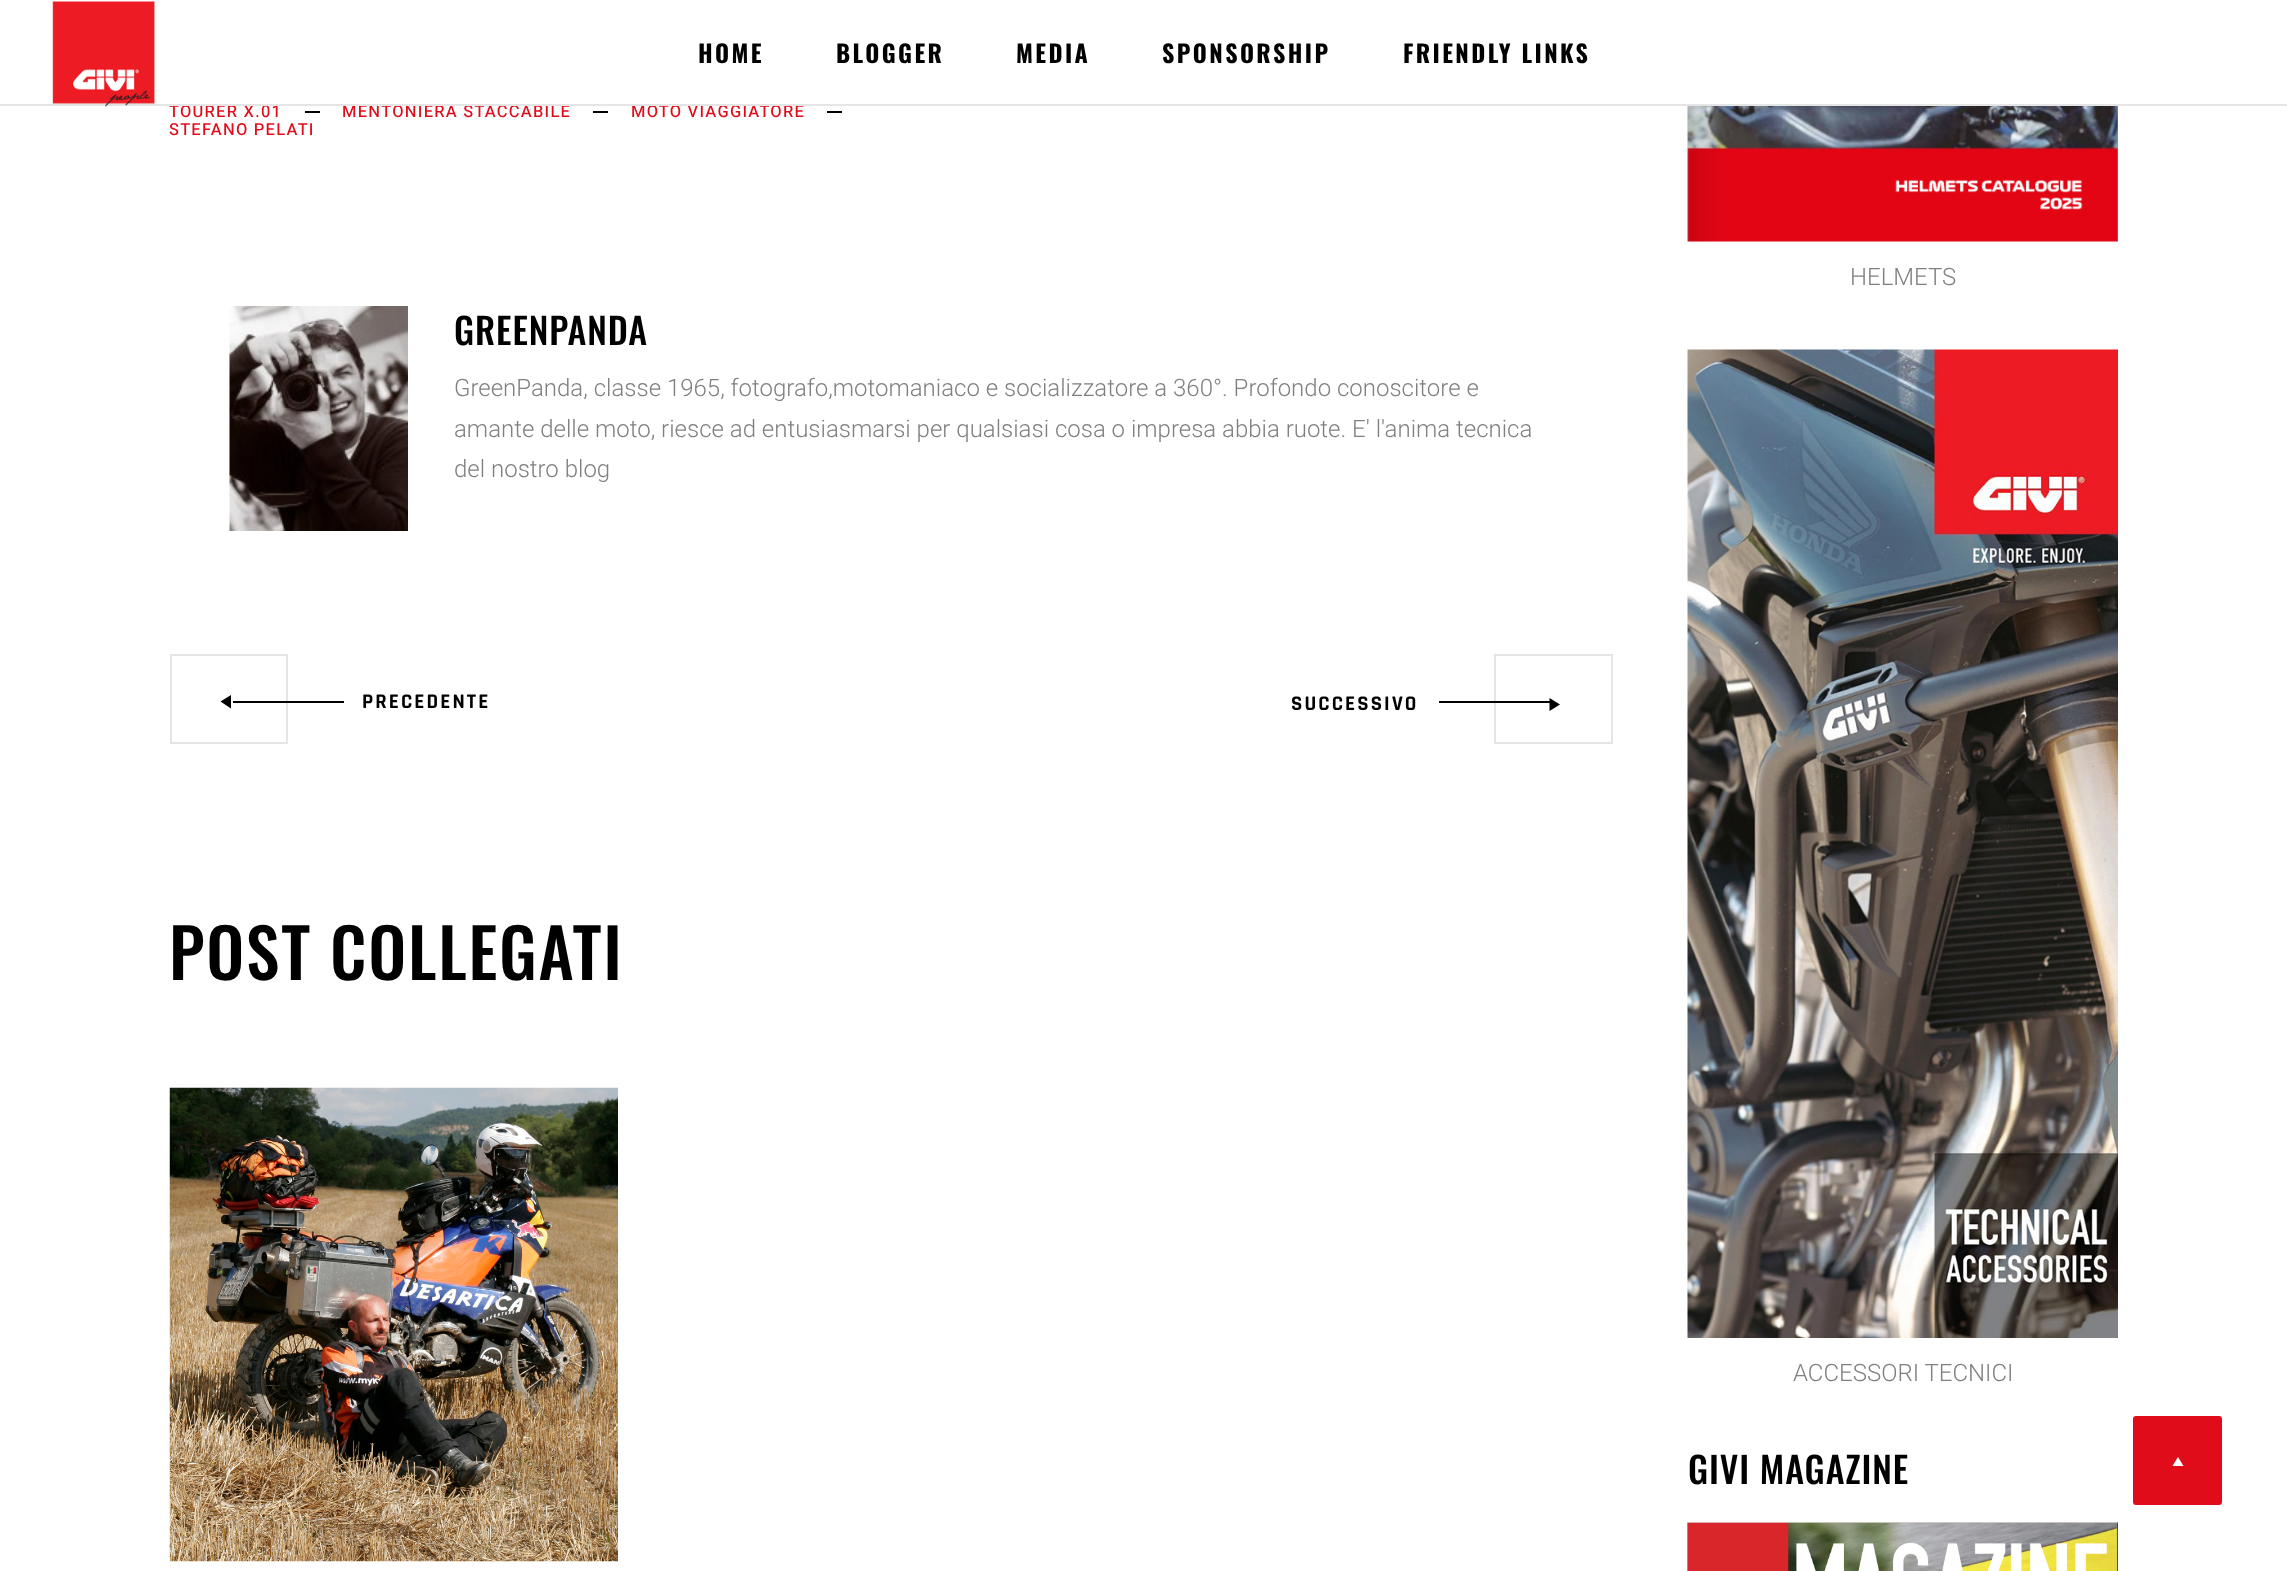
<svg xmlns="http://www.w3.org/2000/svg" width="2287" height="1571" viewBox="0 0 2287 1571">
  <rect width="100%" height="100%" fill="#ffffff"/>
  <text x="169" y="117" font-family="Heebo" font-size="16.5" font-weight="500" letter-spacing="1.25" fill="#e00c19">TOURER X.01</text>
  <text x="342" y="117" font-family="Heebo" font-size="16.5" font-weight="500" letter-spacing="1.25" fill="#e00c19">MENTONIERA STACCABILE</text>
  <text x="631" y="117" font-family="Heebo" font-size="16.5" font-weight="500" letter-spacing="1.25" fill="#e00c19">MOTO VIAGGIATORE</text>
  <rect x="0" y="104" width="2287" height="2" fill="#e5e5e5"/>
  <image x="52" y="1" width="103" height="106" href="img1.png"/>
  <text x="698" y="63" font-family="Oswald" font-size="24" font-weight="bold" letter-spacing="2.4" fill="#000000">HOME</text>
  <text x="836" y="63" font-family="Oswald" font-size="24" font-weight="bold" letter-spacing="2.4" fill="#000000">BLOGGER</text>
  <text x="1016" y="63" font-family="Oswald" font-size="24" font-weight="bold" letter-spacing="2.4" fill="#000000">MEDIA</text>
  <text x="1162" y="63" font-family="Oswald" font-size="24" font-weight="bold" letter-spacing="2.4" fill="#000000">SPONSORSHIP</text>
  <text x="1403" y="63" font-family="Oswald" font-size="24" font-weight="bold" letter-spacing="2.4" fill="#000000">FRIENDLY LINKS</text>
  <rect x="305" y="111" width="15" height="2" fill="#000000"/>
  <rect x="593" y="111" width="15" height="2" fill="#000000"/>
  <rect x="827" y="111" width="15" height="2" fill="#000000"/>
  <text x="169" y="135" font-family="Heebo" font-size="16.5" font-weight="500" letter-spacing="1.25" fill="#e00c19">STEFANO PELATI</text>
  <image x="229" y="306" width="179" height="225" href="img2.png"/>
  <text x="454" y="345" font-family="Oswald" font-size="36" font-weight="500" letter-spacing="0.9" fill="#000000">GREENPANDA</text>
  <text x="454" y="396" font-family="Roboto" font-size="24" font-weight="300" fill="#808080">GreenPanda, classe 1965, fotografo,motomaniaco e socializzatore a 360°. Profondo conoscitore e</text>
  <text x="454" y="437" font-family="Roboto" font-size="24" font-weight="300" fill="#808080">amante delle moto, riesce ad entusiasmarsi per qualsiasi cosa o impresa abbia ruote. E' l'anima tecnica</text>
  <text x="454" y="477" font-family="Roboto" font-size="24" font-weight="300" fill="#808080">del nostro blog</text>
  <rect x="171" y="655" width="116" height="88" fill="none" stroke="#e5e5e5" stroke-width="2"/>
  <rect x="233" y="701" width="111" height="2" fill="#000000"/>
  <path d="M231 708.5L220.5 701.5L231 695Z" fill="#000000"/>
  <text x="362" y="708" font-family="Rajdhani" font-size="21" font-weight="bold" letter-spacing="2.1" fill="#000000">PRECEDENTE</text>
  <text x="1291" y="710" font-family="Rajdhani" font-size="21" font-weight="bold" letter-spacing="2.1" fill="#000000">SUCCESSIVO</text>
  <rect x="1495" y="655" width="117" height="88" fill="none" stroke="#e5e5e5" stroke-width="2"/>
  <path d="M1549.5 698L1560 704.5L1549.5 711Z" fill="#000000"/>
  <rect x="1439" y="701" width="111" height="2" fill="#000000"/>
  <text x="169" y="980" font-family="Oswald" font-size="67.5" font-weight="500" letter-spacing="1.75" fill="#000000">POST COLLEGATI</text>
  <image x="169" y="1087" width="449" height="475" href="img3.png"/>
  <image x="1687" y="106" width="431" height="136" href="img4.png"/>
  <text x="1850" y="285" font-family="Roboto" font-size="24" font-weight="300" fill="#808080">HELMETS</text>
  <image x="1687" y="349" width="431" height="989" href="img5.png"/>
  <text x="1793" y="1381" font-family="Roboto" font-size="24" font-weight="300" fill="#808080">ACCESSORI TECNICI</text>
  <text x="1688" y="1484" font-family="Oswald" font-size="36" font-weight="500" letter-spacing="0.9" fill="#000000">GIVI MAGAZINE</text>
  <image x="1687" y="1522" width="431" height="49" href="img6.png"/>
  <rect x="2134" y="1417" width="87" height="87" rx="2" fill="#e00c19" stroke="#e00c19" stroke-width="2"/>
  <path d="M2172.5 1466L2178 1457L2183.5 1466Z" fill="#ffffff"/>
</svg>
